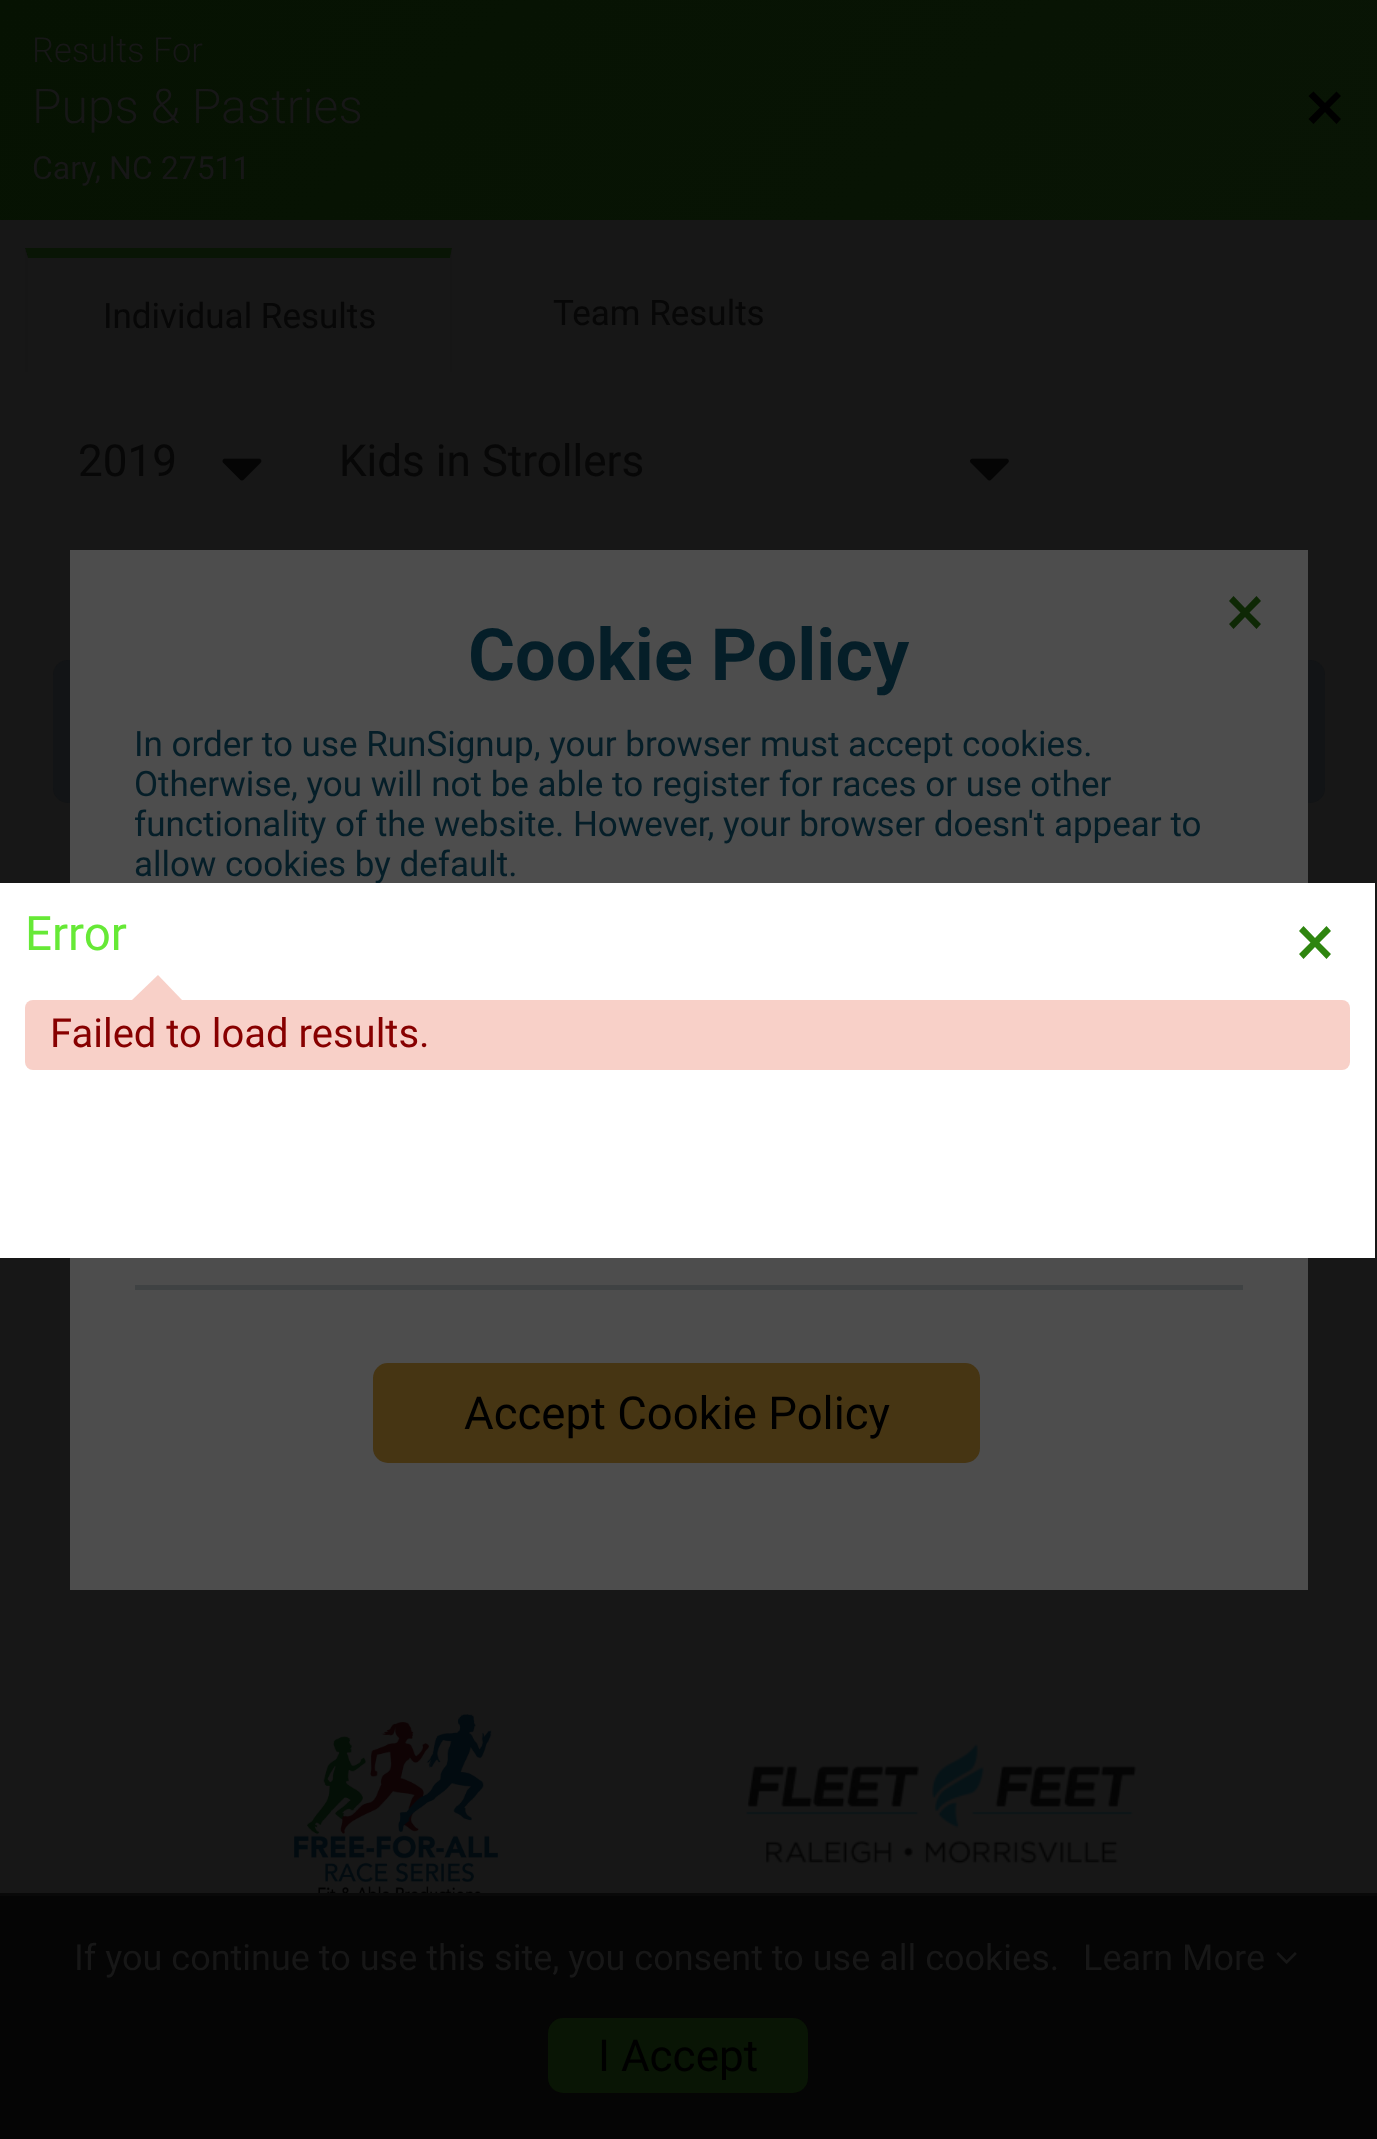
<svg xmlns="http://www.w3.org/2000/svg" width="1377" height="2139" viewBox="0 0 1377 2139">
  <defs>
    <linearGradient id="g1" gradientUnits="userSpaceOnUse" x1="1088" y1="509" x2="289" y2="-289"><stop offset="0" stop-color="#091505"/><stop offset="1" stop-color="#061202"/></linearGradient>
  </defs>
  <rect width="100%" height="100%" fill="#171717"/>
  <rect x="0" y="0" width="1377" height="220" fill="url(#g1)"/>
  <text x="32" y="62" font-family="Roboto" font-size="34.5" font-weight="300" fill="#171717">Results For</text>
  <text x="32" y="123" font-family="Roboto" font-size="48" font-weight="300" fill="#171717">Pups &amp; Pastries</text>
  <text x="32" y="179" font-family="Roboto" font-size="32" fill="#171717">Cary, NC 27511</text>
  <path d="M1308.5 119L1320 107.5L1308.5 96L1313.5 91.5L1325 103L1336.5 91.5L1341 96L1329.5 107.5L1341 119L1336.5 124L1325 112L1313.5 124Z" fill="#000000"/>
  <path d="M25 248H452L450 258H28Z" fill="#091505"/>
  <path d="M452 248V372H450V258Z" fill="#161616"/>
  <path d="M25 372V248L28 258V372Z" fill="#161616"/>
  <text x="103" y="328" font-family="Roboto" font-size="35" fill="#070707">Individual Results</text>
  <text x="553" y="325" font-family="Roboto" font-size="35" fill="#070707">Team Results</text>
  <text x="78" y="476" font-family="Roboto" font-size="44" fill="#070707">2019</text>
  <image x="222" y="458" width="40" height="23" href="img1.png"/>
  <text x="339" y="476" font-family="Roboto" font-size="44" fill="#070707">Kids in Strollers</text>
  <image x="970" y="458" width="39" height="23" href="img2.png"/>
  <rect x="53" y="660" width="1272" height="143" rx="15" fill="#121416"/>
  <image x="294" y="1714" width="204" height="179" href="img3.png"/>
  <image x="746" y="1744" width="391" height="120" href="img4.png"/>
  <rect x="71.5" y="551.5" width="1235" height="1037" fill="none" stroke="#4d4d4d" stroke-width="3"/>
  <rect x="73" y="553" width="1232" height="1034" fill="#4d4d4d"/>
  <path d="M1229 624L1240.5 612.5L1229 601L1233.5 596L1245 608L1256.5 596L1261 601L1249.5 612.5L1261 624L1256.5 629L1245 617L1233.5 629Z" fill="#0e2805"/>
  <text x="468" y="680" font-family="Roboto" font-size="72" font-weight="bold" fill="#051e28">Cookie Policy</text>
  <text x="134" y="756" font-family="Roboto" font-size="35" fill="#051e28">In order to use RunSignup, your browser must accept cookies.</text>
  <text x="134" y="796" font-family="Roboto" font-size="35" fill="#051e28">Otherwise, you will not be able to register for races or use other</text>
  <text x="134" y="836" font-family="Roboto" font-size="35" fill="#051e28">functionality of the website. However, your browser doesn't appear to</text>
  <text x="134" y="876" font-family="Roboto" font-size="35" fill="#051e28">allow cookies by default.</text>
  <rect x="135" y="1285" width="1108" height="5" fill="#3f4243"/>
  <rect x="373" y="1363" width="607" height="100" rx="15" fill="#463513"/>
  <text x="464" y="1429" font-family="Roboto" font-size="45.5" fill="#000000">Accept Cookie Policy</text>
  <rect x="0" y="883" width="1375" height="375" fill="#ffffff"/>
  <text x="25" y="950" font-family="Roboto" font-size="47.5" fill="#66e936">Error</text>
  <path d="M1299 954L1310.5 942.5L1299 931L1303.5 926L1315 938L1326.5 926L1331 931L1319.5 942.5L1331 954L1326.5 959L1315 947L1303.5 959Z" fill="#2e850f"/>
  <rect x="25" y="1000" width="1325" height="70" rx="8" fill="#f8d0c8"/>
  <path d="M182 1000H132L158 975Z" fill="#f8d0c8"/>
  <text x="50" y="1047" font-family="Roboto" font-size="40" fill="#870000">Failed to load results.</text>
  <rect x="0" y="1896" width="1377" height="243" fill="#050505"/>
  <rect x="0" y="1893" width="1377" height="3" fill="#090909"/>
  <text x="74" y="1970" font-family="Roboto" font-size="36" fill="#171717">If you continue to use this site, you consent to use all cookies.</text>
  <text x="1083" y="1970" font-family="Roboto" font-size="36" fill="#171717">Learn More</text>
  <image x="1276" y="1952" width="21" height="12" href="img5.png"/>
  <rect x="548" y="2018" width="260" height="75" rx="15" fill="#091505"/>
  <text x="598" y="2071" font-family="Roboto" font-size="44" fill="#000000">I Accept</text>
</svg>
